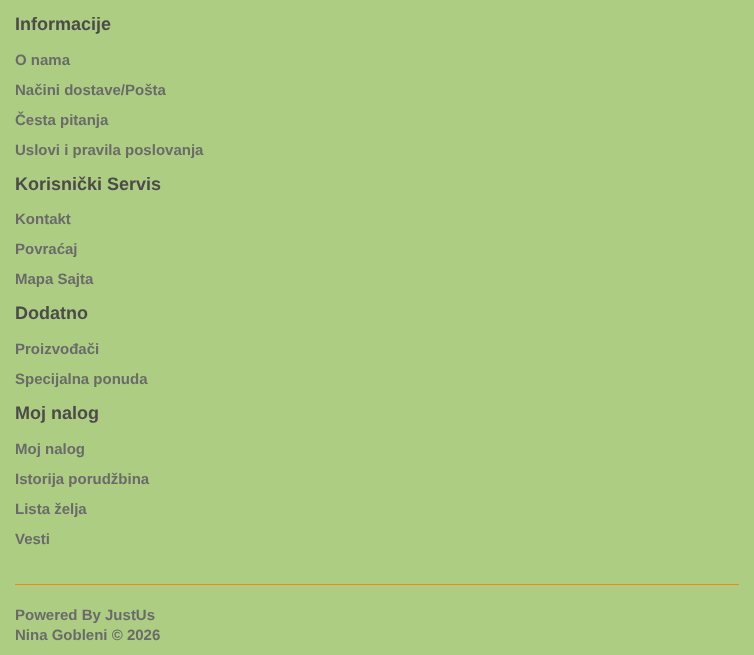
<svg xmlns="http://www.w3.org/2000/svg" width="754" height="655" viewBox="0 0 754 655">
  <rect width="100%" height="100%" fill="#adce82"/>
  <text x="15" y="30" font-family="Liberation Sans" font-size="18" font-weight="bold" fill="#4c4a4a">Informacije</text>
  <text x="15" y="65" font-family="Liberation Sans" font-size="15" font-weight="bold" fill="#6b6a6a">O nama</text>
  <text x="15" y="95" font-family="Liberation Sans" font-size="15" font-weight="bold" fill="#6b6a6a">Načini dostave/Pošta</text>
  <text x="15" y="125" font-family="Liberation Sans" font-size="15" font-weight="bold" fill="#6b6a6a">Česta pitanja</text>
  <text x="15" y="155" font-family="Liberation Sans" font-size="15" font-weight="bold" fill="#6b6a6a">Uslovi i pravila poslovanja</text>
  <text x="15" y="190" font-family="Liberation Sans" font-size="18" font-weight="bold" fill="#4c4a4a">Korisnički Servis</text>
  <text x="15" y="224" font-family="Liberation Sans" font-size="15" font-weight="bold" fill="#6b6a6a">Kontakt</text>
  <text x="15" y="254" font-family="Liberation Sans" font-size="15" font-weight="bold" fill="#6b6a6a">Povraćaj</text>
  <text x="15" y="284" font-family="Liberation Sans" font-size="15" font-weight="bold" fill="#6b6a6a">Mapa Sajta</text>
  <text x="15" y="319" font-family="Liberation Sans" font-size="18" font-weight="bold" fill="#4c4a4a">Dodatno</text>
  <text x="15" y="354" font-family="Liberation Sans" font-size="15" font-weight="bold" fill="#6b6a6a">Proizvođači</text>
  <text x="15" y="384" font-family="Liberation Sans" font-size="15" font-weight="bold" fill="#6b6a6a">Specijalna ponuda</text>
  <text x="15" y="419" font-family="Liberation Sans" font-size="18" font-weight="bold" fill="#4c4a4a">Moj nalog</text>
  <text x="15" y="454" font-family="Liberation Sans" font-size="15" font-weight="bold" fill="#6b6a6a">Moj nalog</text>
  <text x="15" y="484" font-family="Liberation Sans" font-size="15" font-weight="bold" fill="#6b6a6a">Istorija porudžbina</text>
  <text x="15" y="514" font-family="Liberation Sans" font-size="15" font-weight="bold" fill="#6b6a6a">Lista želja</text>
  <text x="15" y="544" font-family="Liberation Sans" font-size="15" font-weight="bold" fill="#6b6a6a">Vesti</text>
  <rect x="15" y="584" width="724" height="1" fill="#f78513"/>
  <text x="15" y="620" font-family="Liberation Sans" font-size="15" font-weight="bold" fill="#6b6a6a">Powered By JustUs</text>
  <text x="15" y="640" font-family="Liberation Sans" font-size="15" font-weight="bold" fill="#6b6a6a">Nina Gobleni © 2026</text>
</svg>
